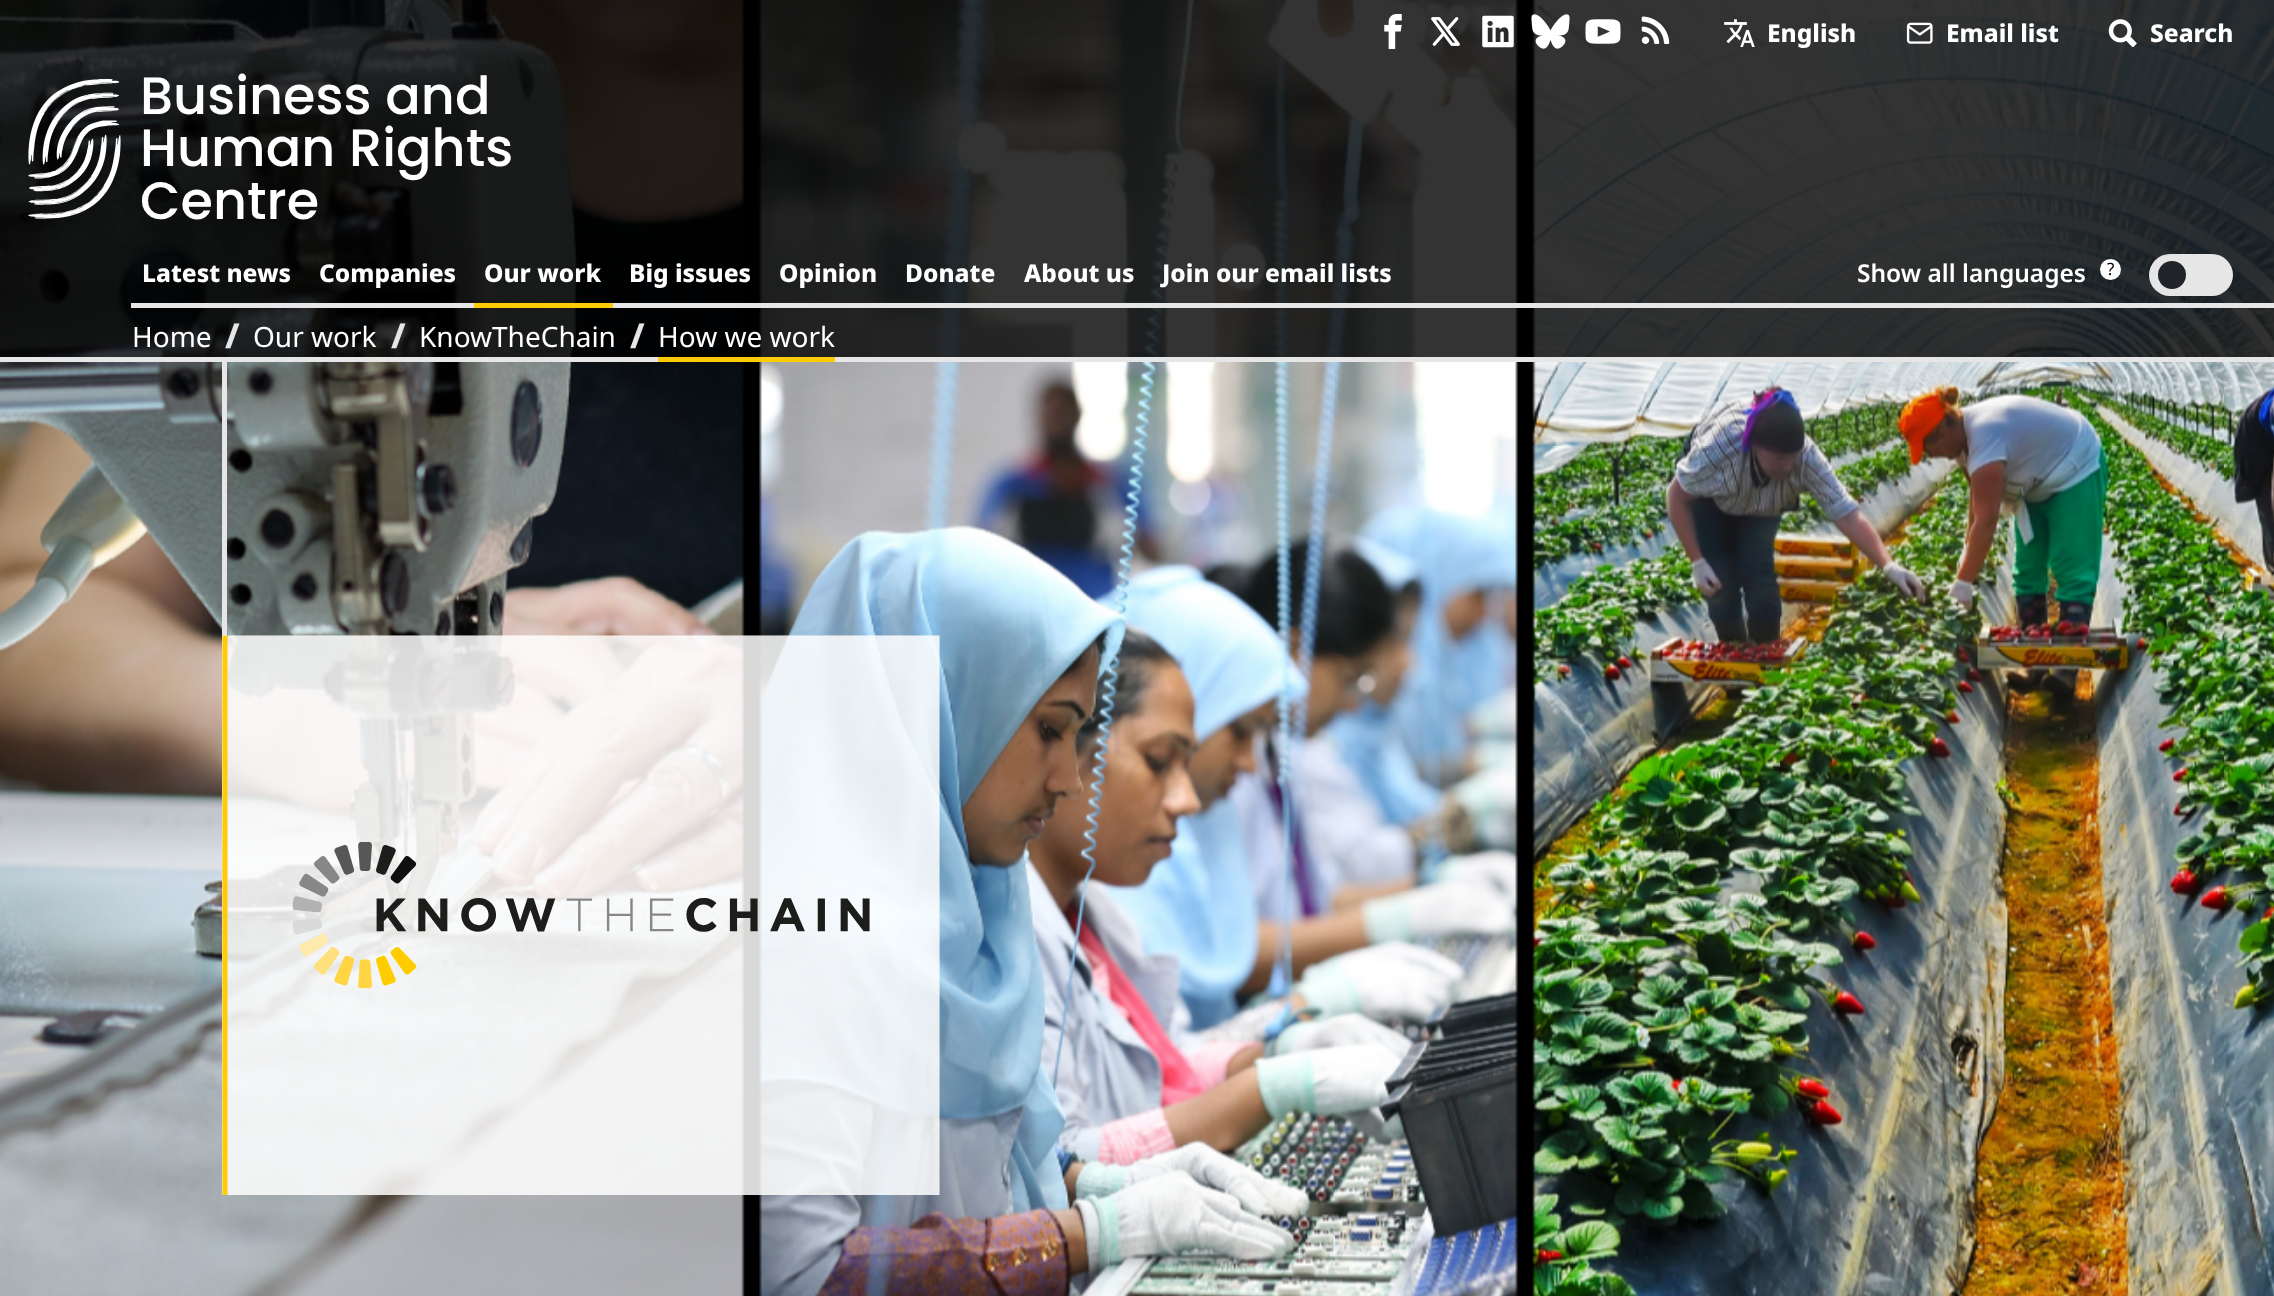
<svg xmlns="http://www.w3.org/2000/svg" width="2274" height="1296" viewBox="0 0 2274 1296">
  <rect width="100%" height="100%" fill="#ffffff"/>
  <image x="0" y="0" width="2274" height="1296" href="img1.png"/>
  <rect x="0" y="0" width="2274" height="28" fill="#000000" fill-opacity="0.8"/>
  <rect x="0" y="28" width="2274" height="329" fill="#000000" fill-opacity="0.8"/>
  <image x="1384" y="14" width="18" height="35" href="img2.png"/>
  <image x="1431" y="17" width="29" height="29" href="img3.png"/>
  <image x="1482" y="15" width="32" height="33" href="img4.png"/>
  <image x="1531" y="14" width="39" height="35" href="img5.png"/>
  <image x="1585" y="19" width="36" height="25" href="img6.png"/>
  <image x="1641" y="16" width="29" height="28" href="img7.png"/>
  <image x="1724" y="19" width="31" height="28" href="img8.png"/>
  <text x="1767" y="42" font-family="Noto Sans" font-size="24.5" font-weight="800" fill="#ffffff">English</text>
  <image x="1906" y="22" width="27" height="22" href="img9.png"/>
  <text x="1946" y="42" font-family="Noto Sans" font-size="24.5" font-weight="800" fill="#ffffff">Email list</text>
  <image x="2108" y="19" width="29" height="28" href="img10.png"/>
  <text x="2150" y="42" font-family="Noto Sans" font-size="24.5" font-weight="800" fill="#ffffff">Search</text>
  <rect x="0" y="357" width="2274" height="5" fill="#e6e6e6"/>
  <image x="28" y="79" width="93" height="140" href="img11.png"/>
  <text x="140" y="114" font-family="Poppins" font-size="52.5" font-weight="500" fill="#ffffff">Business and</text>
  <text x="140" y="166" font-family="Poppins" font-size="52.5" font-weight="500" fill="#ffffff">Human Rights</text>
  <text x="140" y="219" font-family="Poppins" font-size="52.5" font-weight="500" fill="#ffffff">Centre</text>
  <rect x="131" y="303" width="2143" height="5" fill="#e6e6e6"/>
  <text x="142" y="282" font-family="Noto Sans" font-size="24.5" font-weight="800" fill="#ffffff">Latest news</text>
  <text x="319" y="282" font-family="Noto Sans" font-size="24.5" font-weight="800" fill="#ffffff">Companies</text>
  <text x="484" y="282" font-family="Noto Sans" font-size="24.5" font-weight="800" fill="#ffffff">Our work</text>
  <rect x="474" y="303" width="139" height="5" fill="#ffcb05"/>
  <text x="629" y="282" font-family="Noto Sans" font-size="24.5" font-weight="800" fill="#ffffff">Big issues</text>
  <text x="779" y="282" font-family="Noto Sans" font-size="24.5" font-weight="800" fill="#ffffff">Opinion</text>
  <text x="905" y="282" font-family="Noto Sans" font-size="24.5" font-weight="800" fill="#ffffff">Donate</text>
  <text x="1024" y="282" font-family="Noto Sans" font-size="24.5" font-weight="800" fill="#ffffff">About us</text>
  <text x="1162" y="282" font-family="Noto Sans" font-size="24.5" font-weight="800" fill="#ffffff">Join our email lists</text>
  <text x="1857" y="282" font-family="Noto Sans" font-size="24.5" font-weight="600" fill="#ffffff">Show all languages</text>
  <circle cx="2110.5" cy="269.5" r="10.5" fill="#ffffff"/>
  <text x="2107" y="275" font-family="Noto Sans" font-size="17" fill="#000000">?</text>
  <rect x="2149" y="254" width="84" height="42" rx="21" fill="#e6e6e6"/>
  <circle cx="2172" cy="275" r="14" fill="#212529"/>
  <text x="132" y="347" font-family="Noto Sans" font-size="28" fill="#ffffff">Home</text>
  <text x="225" y="348" font-family="Noto Sans" font-size="34" font-weight="800" fill="#e6e6e6">/</text>
  <text x="253" y="347" font-family="Noto Sans" font-size="28" fill="#ffffff">Our work</text>
  <text x="391" y="348" font-family="Noto Sans" font-size="34" font-weight="800" fill="#e6e6e6">/</text>
  <text x="419" y="347" font-family="Noto Sans" font-size="28" fill="#ffffff">KnowTheChain</text>
  <text x="630" y="348" font-family="Noto Sans" font-size="34" font-weight="800" fill="#e6e6e6">/</text>
  <text x="658" y="347" font-family="Noto Sans" font-size="28" fill="#ffffff">How we work</text>
  <rect x="658" y="357" width="177" height="5" fill="#ffcb05"/>
  <rect x="222" y="362" width="5" height="833" fill="#e6e6e6"/>
  <image x="222" y="635" width="718" height="560" href="img12.png"/>
</svg>
